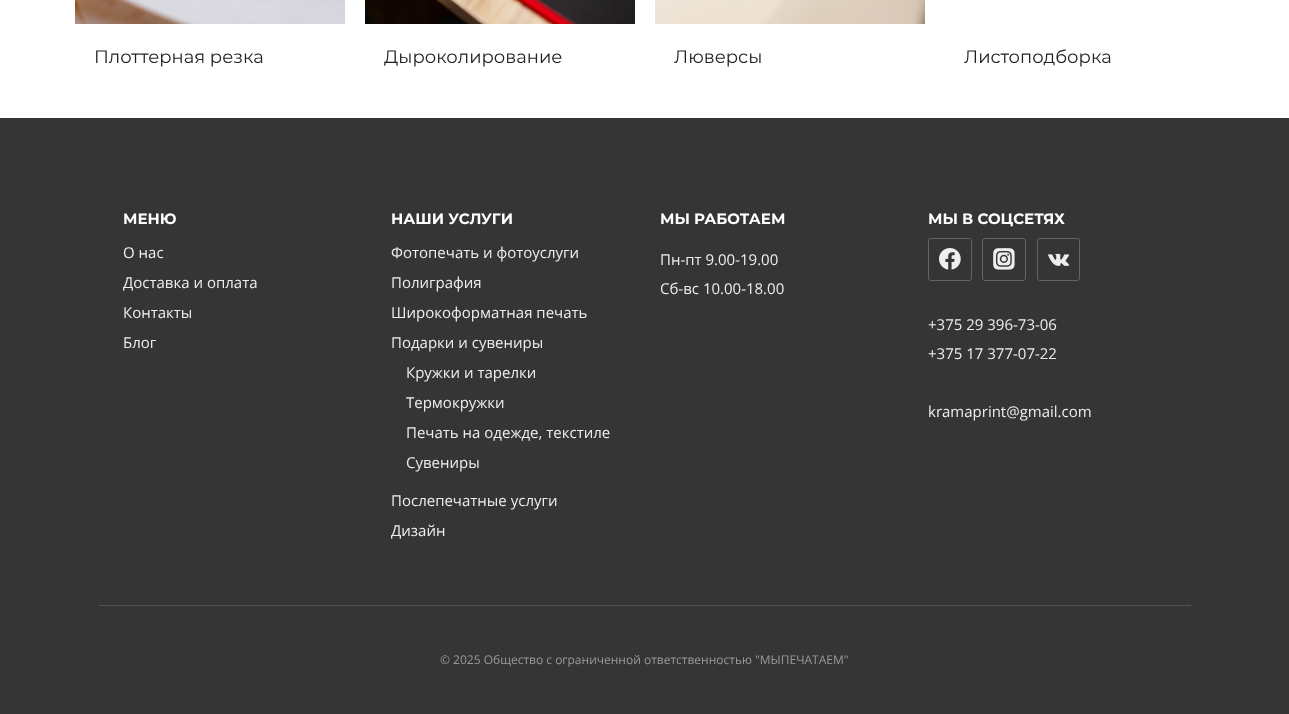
<svg xmlns="http://www.w3.org/2000/svg" width="1289" height="714" viewBox="0 0 1289 714">
  <rect width="100%" height="100%" fill="#ffffff"/>
  <image x="75" y="0" width="270" height="24" href="img1.png"/>
  <text x="94" y="63" font-family="Montserrat" font-size="18" fill="#222222">Плоттерная резка</text>
  <image x="365" y="0" width="270" height="24" href="img2.png"/>
  <text x="384" y="63" font-family="Montserrat" font-size="18" fill="#222222">Дыроколирование</text>
  <image x="655" y="0" width="270" height="24" href="img3.png"/>
  <text x="674" y="63" font-family="Montserrat" font-size="18" fill="#222222">Люверсы</text>
  <text x="964" y="63" font-family="Montserrat" font-size="18" fill="#222222">Листоподборка</text>
  <rect x="0" y="118" width="1289" height="596" fill="#353535"/>
  <text x="123" y="224" font-family="Montserrat" font-size="15" font-weight="bold" fill="#ffffff">МЕНЮ</text>
  <text x="123" y="258" font-family="Open Sans" font-size="15" fill="#eeeeee">О нас</text>
  <text x="123" y="288" font-family="Open Sans" font-size="15" fill="#eeeeee">Доставка и оплата</text>
  <text x="123" y="318" font-family="Open Sans" font-size="15" fill="#eeeeee">Контакты</text>
  <text x="123" y="348" font-family="Open Sans" font-size="15" fill="#eeeeee">Блог</text>
  <text x="391" y="224" font-family="Montserrat" font-size="15" font-weight="bold" fill="#ffffff">НАШИ УСЛУГИ</text>
  <text x="391" y="258" font-family="Open Sans" font-size="15" fill="#eeeeee">Фотопечать и фотоуслуги</text>
  <text x="391" y="288" font-family="Open Sans" font-size="15" fill="#eeeeee">Полиграфия</text>
  <text x="391" y="318" font-family="Open Sans" font-size="15" fill="#eeeeee">Широкоформатная печать</text>
  <text x="391" y="348" font-family="Open Sans" font-size="15" fill="#eeeeee">Подарки и сувениры</text>
  <text x="406" y="378" font-family="Open Sans" font-size="15" fill="#eeeeee">Кружки и тарелки</text>
  <text x="406" y="408" font-family="Open Sans" font-size="15" fill="#eeeeee">Термокружки</text>
  <text x="406" y="438" font-family="Open Sans" font-size="15" fill="#eeeeee">Печать на одежде, текстиле</text>
  <text x="406" y="468" font-family="Open Sans" font-size="15" fill="#eeeeee">Сувениры</text>
  <text x="391" y="506" font-family="Open Sans" font-size="15" fill="#eeeeee">Послепечатные услуги</text>
  <text x="391" y="536" font-family="Open Sans" font-size="15" fill="#eeeeee">Дизайн</text>
  <text x="660" y="224" font-family="Montserrat" font-size="15" font-weight="bold" fill="#ffffff">МЫ РАБОТАЕМ</text>
  <text x="660" y="265" font-family="Open Sans" font-size="15" fill="#eeeeee">Пн-пт 9.00-19.00</text>
  <text x="660" y="294" font-family="Open Sans" font-size="15" fill="#eeeeee">Сб-вс 10.00-18.00</text>
  <text x="928" y="224" font-family="Montserrat" font-size="15" font-weight="bold" fill="#ffffff">МЫ В СОЦСЕТЯХ</text>
  <rect x="928.5" y="238.5" width="43" height="42" rx="2.5" fill="none" stroke="#636466"/>
  <image x="939" y="248" width="22" height="22" href="img4.png"/>
  <rect x="982.5" y="238.5" width="43" height="42" rx="2.5" fill="none" stroke="#636466"/>
  <image x="993" y="248" width="22" height="22" href="img5.png"/>
  <rect x="1037.5" y="238.5" width="42" height="42" rx="2.5" fill="none" stroke="#636466"/>
  <image x="1048" y="253" width="21" height="13" href="img6.png"/>
  <text x="928" y="330" font-family="Open Sans" font-size="15" fill="#eeeeee">+375 29 396-73-06</text>
  <text x="928" y="359" font-family="Open Sans" font-size="15" fill="#eeeeee">+375 17 377-07-22</text>
  <text x="928" y="417" font-family="Open Sans" font-size="15" fill="#eeeeee">kramaprint@gmail.com</text>
  <rect x="99" y="605" width="1092" height="1" fill="#515152"/>
  <text x="440" y="664" font-family="Open Sans" font-size="12" fill="#9a9a9a">© 2025 Общество с ограниченной ответственностью "МЫПЕЧАТАЕМ"</text>
</svg>
